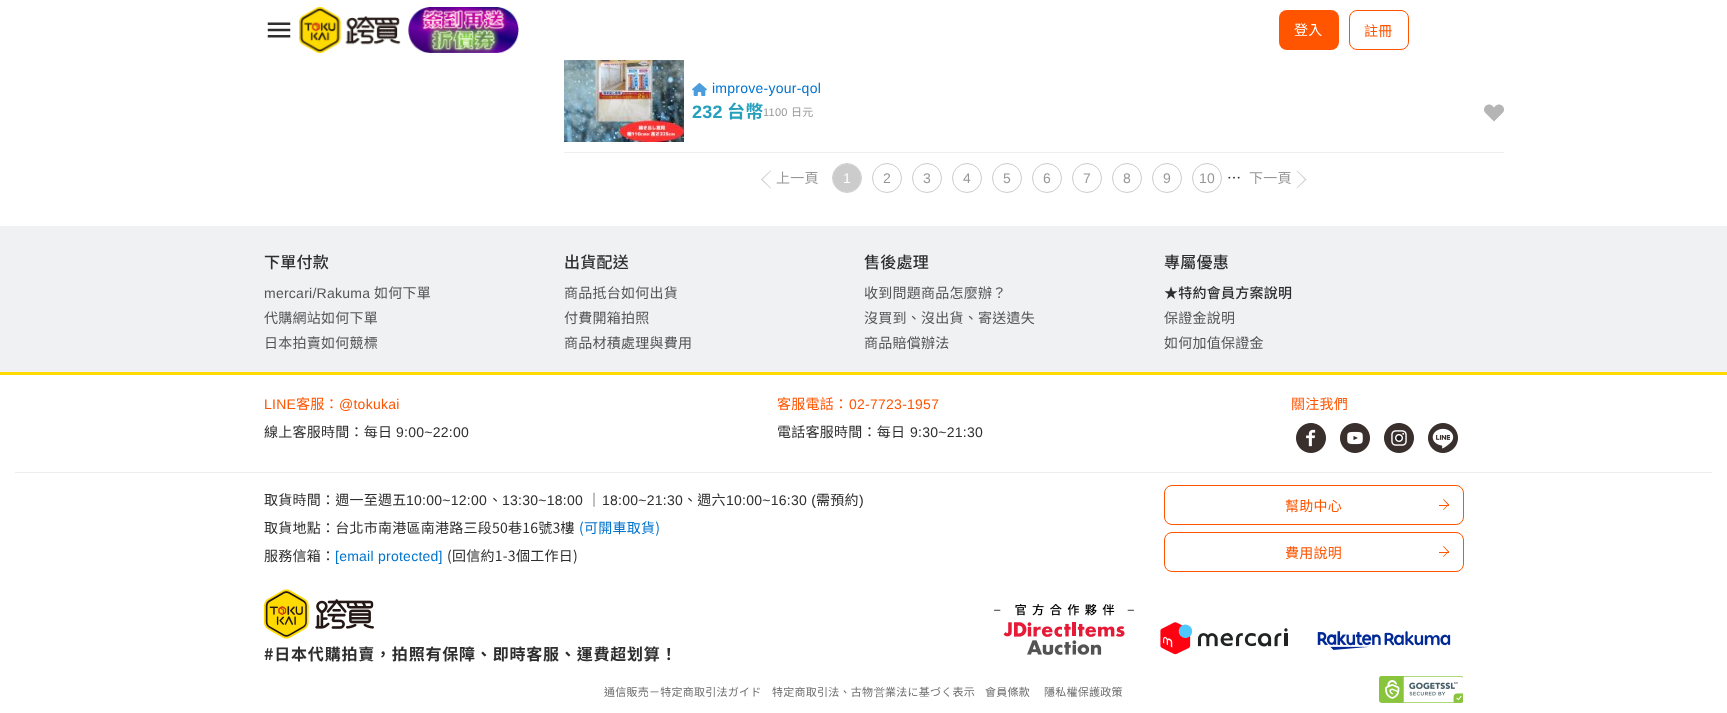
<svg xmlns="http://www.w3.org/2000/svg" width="1727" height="713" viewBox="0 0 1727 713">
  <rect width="100%" height="100%" fill="#ffffff"/>
  <image x="267" y="22" width="24" height="16" href="img1.png"/>
  <image x="299" y="7" width="220" height="46" href="img2.png"/>
  <rect x="1279" y="10" width="60" height="40" rx="8" fill="#ff5400"/>
  <text x="1294" y="35" font-family="Noto Sans TC" font-size="14" letter-spacing="0.25" fill="#ffffff">登入</text>
  <rect x="1349.5" y="10.5" width="59" height="39" rx="7.5" fill="none" stroke="#ff5400"/>
  <text x="1364" y="36" font-family="Noto Sans TC" font-size="14" letter-spacing="0.25" fill="#ff5400">註冊</text>
  <rect x="564" y="152" width="940" height="1" fill="#efefef"/>
  <image x="564" y="60" width="120" height="82" href="img3.png"/>
  <image x="692" y="83" width="15" height="13" href="img4.png"/>
  <text x="712" y="93" font-family="Liberation Sans" font-size="14" letter-spacing="0.25" fill="#0073cc">improve-your-qol</text>
  <text x="692" y="118" font-family="Liberation Sans" font-size="18" font-weight="bold" letter-spacing="0.25" fill="#26a0bd">232</text>
  <text x="727" y="118" font-family="Noto Sans TC" font-size="18" font-weight="bold" letter-spacing="0.25" fill="#26a0bd">台幣</text>
  <text x="763" y="116" font-family="Liberation Sans" font-size="11" letter-spacing="0.25" fill="#979797">1100</text>
  <text x="791" y="116" font-family="Noto Sans TC" font-size="11" letter-spacing="0.25" fill="#979797">日元</text>
  <image x="1484" y="104" width="20" height="18" href="img5.png"/>
  <path d="M762 179L771 188L770.5 188.5L761 179.5Z" fill="#cccccc"/>
  <path d="M770.5 170.5L771 171L762 180L761 179.5Z" fill="#cccccc"/>
  <text x="776" y="183" font-family="Noto Sans TC" font-size="14" letter-spacing="0.25" fill="#979797">上一頁</text>
  <circle cx="847" cy="178" r="14.5" fill="none" stroke="#cccccc"/>
  <circle cx="847" cy="178" r="14" fill="#cccccc"/>
  <text x="843" y="183" font-family="Liberation Sans" font-size="14" letter-spacing="0.25" fill="#ffffff">1</text>
  <circle cx="887" cy="178" r="14.5" fill="none" stroke="#cccccc"/>
  <text x="883" y="183" font-family="Liberation Sans" font-size="14" letter-spacing="0.25" fill="#979797">2</text>
  <circle cx="927" cy="178" r="14.5" fill="none" stroke="#cccccc"/>
  <text x="923" y="183" font-family="Liberation Sans" font-size="14" letter-spacing="0.25" fill="#979797">3</text>
  <circle cx="967" cy="178" r="14.5" fill="none" stroke="#cccccc"/>
  <text x="963" y="183" font-family="Liberation Sans" font-size="14" letter-spacing="0.25" fill="#979797">4</text>
  <circle cx="1007" cy="178" r="14.5" fill="none" stroke="#cccccc"/>
  <text x="1003" y="183" font-family="Liberation Sans" font-size="14" letter-spacing="0.25" fill="#979797">5</text>
  <circle cx="1047" cy="178" r="14.5" fill="none" stroke="#cccccc"/>
  <text x="1043" y="183" font-family="Liberation Sans" font-size="14" letter-spacing="0.25" fill="#979797">6</text>
  <circle cx="1087" cy="178" r="14.5" fill="none" stroke="#cccccc"/>
  <text x="1083" y="183" font-family="Liberation Sans" font-size="14" letter-spacing="0.25" fill="#979797">7</text>
  <circle cx="1127" cy="178" r="14.5" fill="none" stroke="#cccccc"/>
  <text x="1123" y="183" font-family="Liberation Sans" font-size="14" letter-spacing="0.25" fill="#979797">8</text>
  <circle cx="1167" cy="178" r="14.5" fill="none" stroke="#cccccc"/>
  <text x="1163" y="183" font-family="Liberation Sans" font-size="14" letter-spacing="0.25" fill="#979797">9</text>
  <circle cx="1207" cy="178" r="14.5" fill="none" stroke="#cccccc"/>
  <text x="1199" y="183" font-family="Liberation Sans" font-size="14" letter-spacing="0.25" fill="#979797">10</text>
  <text x="1227" y="183" font-family="Noto Sans TC" font-size="14" letter-spacing="0.25" fill="#2e2e2f">⋯</text>
  <text x="1249" y="183" font-family="Noto Sans TC" font-size="14" letter-spacing="0.25" fill="#979797">下一頁</text>
  <path d="M1297 170.5L1306.5 179.5L1305.5 180L1296.5 171Z" fill="#cccccc"/>
  <path d="M1305.5 179L1306.5 179.5L1297 188.5L1296.5 188Z" fill="#cccccc"/>
  <rect x="0" y="226" width="1727" height="146" fill="#f0f1f2"/>
  <text x="264" y="268" font-family="Noto Sans TC" font-size="16" font-weight="500" letter-spacing="0.25" fill="#2e2e2f">下單付款</text>
  <text x="264" y="298" font-family="Liberation Sans" font-size="14" letter-spacing="0.25" fill="#555556">mercari/Rakuma</text>
  <text x="374" y="298" font-family="Noto Sans TC" font-size="14" letter-spacing="0.25" fill="#555556">如何下單</text>
  <text x="264" y="323" font-family="Noto Sans TC" font-size="14" letter-spacing="0.25" fill="#555556">代購網站如何下單</text>
  <text x="264" y="348" font-family="Noto Sans TC" font-size="14" letter-spacing="0.25" fill="#555556">日本拍賣如何競標</text>
  <text x="564" y="268" font-family="Noto Sans TC" font-size="16" font-weight="500" letter-spacing="0.25" fill="#2e2e2f">出貨配送</text>
  <text x="564" y="298" font-family="Noto Sans TC" font-size="14" letter-spacing="0.25" fill="#555556">商品抵台如何出貨</text>
  <text x="564" y="323" font-family="Noto Sans TC" font-size="14" letter-spacing="0.25" fill="#555556">付費開箱拍照</text>
  <text x="564" y="348" font-family="Noto Sans TC" font-size="14" letter-spacing="0.25" fill="#555556">商品材積處理與費用</text>
  <text x="864" y="268" font-family="Noto Sans TC" font-size="16" font-weight="500" letter-spacing="0.25" fill="#2e2e2f">售後處理</text>
  <text x="864" y="298" font-family="Noto Sans TC" font-size="14" letter-spacing="0.25" fill="#555556">收到問題商品怎麼辦？</text>
  <text x="864" y="323" font-family="Noto Sans TC" font-size="14" letter-spacing="0.25" fill="#555556">沒買到、沒出貨、寄送遺失</text>
  <text x="864" y="348" font-family="Noto Sans TC" font-size="14" letter-spacing="0.25" fill="#555556">商品賠償辦法</text>
  <text x="1164" y="268" font-family="Noto Sans TC" font-size="16" font-weight="500" letter-spacing="0.25" fill="#2e2e2f">專屬優惠</text>
  <text x="1164" y="298" font-family="Noto Sans TC" font-size="14" font-weight="500" letter-spacing="0.25" fill="#2e2e2f">★特約會員方案說明</text>
  <text x="1164" y="323" font-family="Noto Sans TC" font-size="14" letter-spacing="0.25" fill="#555556">保證金說明</text>
  <text x="1164" y="348" font-family="Noto Sans TC" font-size="14" letter-spacing="0.25" fill="#555556">如何加值保證金</text>
  <rect x="0" y="372" width="1727" height="3" fill="#ffda00"/>
  <text x="264" y="409" font-family="Liberation Sans" font-size="14" letter-spacing="0.25" fill="#ff5400">LINE</text>
  <text x="296" y="409" font-family="Noto Sans TC" font-size="14" letter-spacing="0.25" fill="#ff5400">客服：</text>
  <text x="339" y="409" font-family="Liberation Sans" font-size="14" letter-spacing="0.25" fill="#ff5400">@tokukai</text>
  <text x="264" y="437" font-family="Noto Sans TC" font-size="14" letter-spacing="0.25" fill="#2e2e2f">線上客服時間：每日</text>
  <text x="396" y="437" font-family="Liberation Sans" font-size="14" letter-spacing="0.25" fill="#2e2e2f">9:00~22:00</text>
  <text x="777" y="409" font-family="Noto Sans TC" font-size="14" letter-spacing="0.25" fill="#ff5400">客服電話：</text>
  <text x="849" y="409" font-family="Liberation Sans" font-size="14" letter-spacing="0.25" fill="#ff5400">02-7723-1957</text>
  <text x="777" y="437" font-family="Noto Sans TC" font-size="14" letter-spacing="0.25" fill="#2e2e2f">電話客服時間：每日</text>
  <text x="910" y="437" font-family="Liberation Sans" font-size="14" letter-spacing="0.25" fill="#2e2e2f">9:30~21:30</text>
  <text x="1291" y="409" font-family="Noto Sans TC" font-size="14" letter-spacing="0.25" fill="#ff5400">關注我們</text>
  <image x="1296" y="423" width="30" height="30" href="img6.png"/>
  <image x="1340" y="423" width="30" height="30" href="img7.png"/>
  <image x="1384" y="423" width="30" height="30" href="img8.png"/>
  <image x="1428" y="423" width="30" height="30" href="img9.png"/>
  <rect x="15" y="472" width="1697" height="1" fill="#ededed"/>
  <text x="264" y="505" font-family="Noto Sans TC" font-size="14" letter-spacing="0.25" fill="#2e2e2f">取貨時間：週一至週五</text>
  <text x="406" y="505" font-family="Liberation Sans" font-size="14" letter-spacing="0.25" fill="#2e2e2f">10:00~12:00</text>
  <text x="488" y="505" font-family="Noto Sans TC" font-size="14" letter-spacing="0.25" fill="#2e2e2f">、</text>
  <text x="502" y="505" font-family="Liberation Sans" font-size="14" letter-spacing="0.25" fill="#2e2e2f">13:30~18:00</text>
  <text x="587" y="505" font-family="Noto Sans TC" font-size="14" letter-spacing="0.25" fill="#2e2e2f">｜</text>
  <text x="602" y="505" font-family="Liberation Sans" font-size="14" letter-spacing="0.25" fill="#2e2e2f">18:00~21:30</text>
  <text x="683" y="505" font-family="Noto Sans TC" font-size="14" letter-spacing="0.25" fill="#2e2e2f">、週六</text>
  <text x="726" y="505" font-family="Liberation Sans" font-size="14" letter-spacing="0.25" fill="#2e2e2f">10:00~16:30 (</text>
  <text x="816" y="505" font-family="Noto Sans TC" font-size="14" letter-spacing="0.25" fill="#2e2e2f">需預約</text>
  <text x="859" y="505" font-family="Liberation Sans" font-size="14" letter-spacing="0.25" fill="#2e2e2f">)</text>
  <text x="264" y="533" font-family="Noto Sans TC" font-size="14" letter-spacing="0.25" fill="#2e2e2f">取貨地點：台北市南港區南港路三段50巷16號3樓</text>
  <text x="579" y="533" font-family="Noto Sans TC" font-size="14" letter-spacing="0.25" fill="#0073cc">(可開車取貨)</text>
  <text x="264" y="561" font-family="Noto Sans TC" font-size="14" letter-spacing="0.25" fill="#2e2e2f">服務信箱：</text>
  <text x="335" y="561" font-family="Liberation Sans" font-size="14" letter-spacing="0.25" fill="#0073cc">[email protected]</text>
  <text x="447" y="561" font-family="Noto Sans TC" font-size="14" letter-spacing="0.25" fill="#2e2e2f">(回信約1-3個工作日)</text>
  <rect x="1164.5" y="485.5" width="299" height="39" rx="7.5" fill="none" stroke="#ff5400"/>
  <text x="1285" y="511" font-family="Noto Sans TC" font-size="14" letter-spacing="0.25" fill="#ff5400">幫助中心</text>
  <rect x="1439" y="505" width="10" height="1" fill="#ff5400"/>
  <path d="M1443.5 499L1449 504.5L1448.5 505.5L1443 499.5Z" fill="#ff5400"/>
  <path d="M1448.5 504L1449 504.5L1443.5 510L1443 509.5Z" fill="#ff5400"/>
  <rect x="1164.5" y="532.5" width="299" height="39" rx="7.5" fill="none" stroke="#ff5400"/>
  <text x="1285" y="558" font-family="Noto Sans TC" font-size="14" letter-spacing="0.25" fill="#ff5400">費用說明</text>
  <rect x="1439" y="552" width="10" height="1" fill="#ff5400"/>
  <path d="M1443.5 546L1449 551.5L1448.5 552.5L1443 546.5Z" fill="#ff5400"/>
  <path d="M1448.5 551L1449 551.5L1443.5 557L1443 556.5Z" fill="#ff5400"/>
  <image x="264" y="589" width="110" height="50" href="img10.png"/>
  <text x="264" y="660" font-family="Noto Sans TC" font-size="16" font-weight="bold" letter-spacing="0.8" fill="#2e2e2f">#日本代購拍賣，拍照有保障、即時客服、運費超划算！</text>
  <image x="994" y="604" width="140" height="51" href="img11.png"/>
  <image x="1160" y="622" width="128" height="33" href="img12.png"/>
  <image x="1317" y="631" width="134" height="19" href="img13.png"/>
  <text x="604" y="696" font-family="Noto Sans TC" font-size="11" letter-spacing="0.25" fill="#6d6d6d">通信販売－特定商取引法ガイド</text>
  <text x="772" y="696" font-family="Noto Sans TC" font-size="11" letter-spacing="0.25" fill="#6d6d6d">特定商取引法、古物</text>
  <text x="874" y="696" font-family="WenQuanYi Zen Hei" font-size="11" font-weight="500" letter-spacing="0.25" fill="#6d6d6d">営</text>
  <text x="885" y="696" font-family="Noto Sans TC" font-size="11" letter-spacing="0.25" fill="#6d6d6d">業法に基づく表示</text>
  <text x="985" y="696" font-family="Noto Sans TC" font-size="11" letter-spacing="0.25" fill="#6d6d6d">會員條款</text>
  <text x="1044" y="696" font-family="Noto Sans TC" font-size="11" letter-spacing="0.25" fill="#6d6d6d">隱私權保護政策</text>
  <image x="1379" y="676" width="84" height="27" href="img14.png"/>
</svg>
